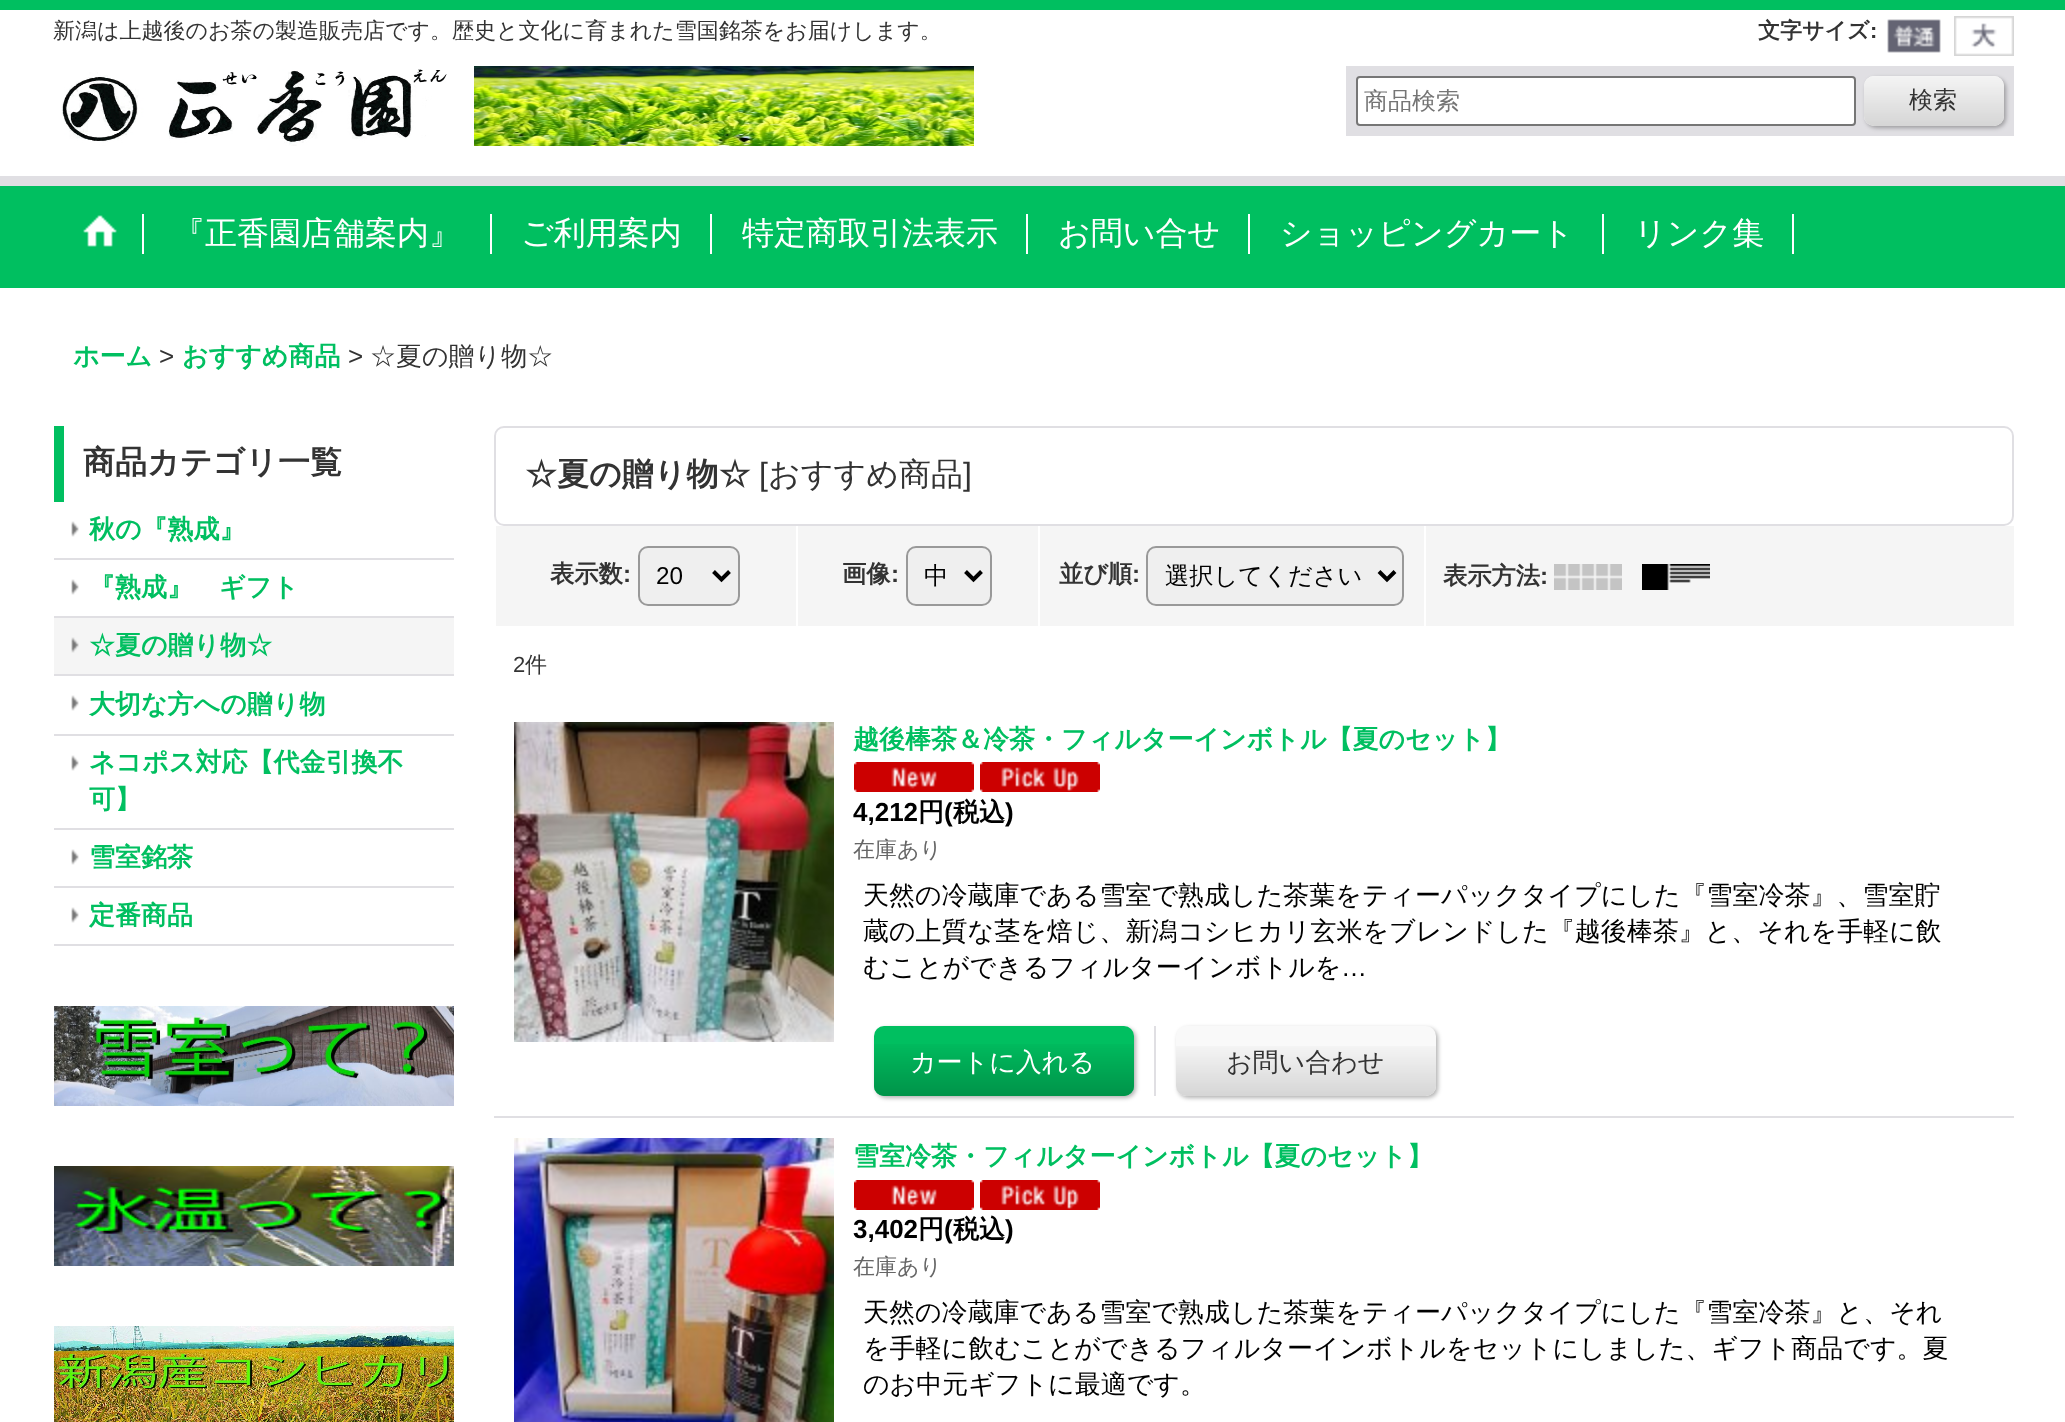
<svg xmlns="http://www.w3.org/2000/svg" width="2065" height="1422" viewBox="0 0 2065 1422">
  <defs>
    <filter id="blur1" x="-50%" y="-200%" width="200%" height="500%"><feGaussianBlur stdDeviation="2"/></filter>
  </defs>
  <rect width="100%" height="100%" fill="#ffffff"/>
  <rect x="0" y="0" width="2065" height="10" fill="#00bf60"/>
  <text x="53" y="38" font-family="WenQuanYi Zen Hei" font-size="22" font-weight="500" fill="#333333">新潟は上越後のお茶の製造販売店です。歴史と文化に育まれた雪国銘茶をお届けします。</text>
  <text x="1758" y="38" font-family="WenQuanYi Zen Hei" font-size="22" font-weight="bold" fill="#333333">文字サイズ</text>
  <text x="1870" y="38" font-family="Liberation Sans" font-size="22" font-weight="bold" fill="#333333">:</text>
  <image x="1887" y="19" width="54" height="34" href="img1.png"/>
  <image x="1954" y="16" width="60" height="40" href="img2.png"/>
  <image x="61" y="69" width="386" height="77" href="img3.png"/>
  <image x="474" y="66" width="500" height="80" href="img4.png"/>
  <rect x="1346" y="66" width="668" height="70" fill="#e0dfe3"/>
  <rect x="1357" y="77" width="498" height="48" rx="3" fill="#ffffff" stroke="#767676" stroke-width="2"/>
  <text x="1364" y="109" font-family="WenQuanYi Zen Hei" font-size="24" font-weight="500" fill="#757575">商品検索</text>
  <rect x="1866" y="78" width="140" height="50" rx="10" fill="#000000" fill-opacity="0.3" filter="url(#blur1)"/>
  <rect x="1864" y="76" width="140" height="50" rx="10" fill="#f9f9f9"/>
  <image x="1864" y="76" width="140" height="50" href="img5.png"/>
  <text x="1909" y="108" font-family="WenQuanYi Zen Hei" font-size="24" font-weight="500" fill="#333333">検索</text>
  <rect x="0" y="186" width="2065" height="102" fill="#00bf60"/>
  <rect x="0" y="176" width="2065" height="10" fill="#e0dfe3"/>
  <rect x="142" y="214" width="2" height="40" fill="#ffffff"/>
  <image x="83" y="215" width="34" height="32" href="img6.png"/>
  <rect x="490" y="214" width="2" height="40" fill="#ffffff"/>
  <text x="173" y="244" font-family="WenQuanYi Zen Hei" font-size="32" font-weight="500" fill="#ffffff">『正香園店舗案内』</text>
  <rect x="710" y="214" width="2" height="40" fill="#ffffff"/>
  <text x="521" y="244" font-family="WenQuanYi Zen Hei" font-size="32" font-weight="500" fill="#ffffff">ご利用案内</text>
  <rect x="1026" y="214" width="2" height="40" fill="#ffffff"/>
  <text x="742" y="244" font-family="WenQuanYi Zen Hei" font-size="32" font-weight="500" fill="#ffffff">特定商取引法表示</text>
  <rect x="1248" y="214" width="2" height="40" fill="#ffffff"/>
  <text x="1058" y="244" font-family="WenQuanYi Zen Hei" font-size="32" font-weight="500" fill="#ffffff">お問い合せ</text>
  <rect x="1602" y="214" width="2" height="40" fill="#ffffff"/>
  <text x="1280" y="244" font-family="WenQuanYi Zen Hei" font-size="32" font-weight="500" fill="#ffffff">ショッピングカート</text>
  <rect x="1792" y="214" width="2" height="40" fill="#ffffff"/>
  <text x="1634" y="244" font-family="WenQuanYi Zen Hei" font-size="32" font-weight="500" fill="#ffffff">リンク集</text>
  <text x="73" y="365" font-family="WenQuanYi Zen Hei" font-size="26" font-weight="bold" fill="#00bf60">ホーム</text>
  <text x="159" y="365" font-family="Liberation Sans" font-size="26" fill="#333333">&gt;</text>
  <text x="182" y="365" font-family="WenQuanYi Zen Hei" font-size="26" font-weight="bold" fill="#00bf60">おすすめ商品</text>
  <text x="348" y="365" font-family="Liberation Sans" font-size="26" fill="#333333">&gt;</text>
  <text x="370" y="365" font-family="WenQuanYi Zen Hei" font-size="26" font-weight="500" fill="#333333">☆夏の贈り物☆</text>
  <rect x="54" y="426" width="10" height="76" fill="#00bf60"/>
  <text x="83" y="473" font-family="WenQuanYi Zen Hei" font-size="32" font-weight="bold" fill="#333333">商品カテゴリ一覧</text>
  <rect x="54" y="558" width="400" height="2" fill="#e0dfe3"/>
  <image x="71" y="521" width="8" height="16" href="img7.png"/>
  <text x="89" y="538" font-family="WenQuanYi Zen Hei" font-size="26" font-weight="bold" fill="#00bf60">秋の『熟成』</text>
  <rect x="54" y="616" width="400" height="2" fill="#e0dfe3"/>
  <image x="71" y="579" width="8" height="16" href="img7.png"/>
  <text x="89" y="596" font-family="WenQuanYi Zen Hei" font-size="26" font-weight="bold" fill="#00bf60">『熟成』　ギフト</text>
  <rect x="54" y="618" width="400" height="56" fill="#f5f5f5"/>
  <rect x="54" y="674" width="400" height="2" fill="#e0dfe3"/>
  <image x="71" y="637" width="8" height="16" href="img8.png"/>
  <text x="89" y="654" font-family="WenQuanYi Zen Hei" font-size="26" font-weight="bold" fill="#00bf60">☆夏の贈り物☆</text>
  <rect x="54" y="734" width="400" height="2" fill="#e0dfe3"/>
  <image x="71" y="695" width="8" height="16" href="img7.png"/>
  <text x="89" y="713" font-family="WenQuanYi Zen Hei" font-size="26" font-weight="bold" fill="#00bf60">大切な方への贈り物</text>
  <rect x="54" y="828" width="400" height="2" fill="#e0dfe3"/>
  <image x="71" y="755" width="8" height="16" href="img7.png"/>
  <text x="89" y="771" font-family="WenQuanYi Zen Hei" font-size="26" font-weight="bold" fill="#00bf60">ネコポス対応【代金引換不</text>
  <text x="89" y="808" font-family="WenQuanYi Zen Hei" font-size="26" font-weight="bold" fill="#00bf60">可】</text>
  <rect x="54" y="886" width="400" height="2" fill="#e0dfe3"/>
  <image x="71" y="849" width="8" height="16" href="img7.png"/>
  <text x="89" y="866" font-family="WenQuanYi Zen Hei" font-size="26" font-weight="bold" fill="#00bf60">雪室銘茶</text>
  <rect x="54" y="944" width="400" height="2" fill="#e0dfe3"/>
  <image x="71" y="907" width="8" height="16" href="img7.png"/>
  <text x="89" y="924" font-family="WenQuanYi Zen Hei" font-size="26" font-weight="bold" fill="#00bf60">定番商品</text>
  <image x="54" y="1006" width="400" height="100" href="img9.png"/>
  <image x="54" y="1166" width="400" height="100" href="img10.png"/>
  <image x="54" y="1326" width="400" height="96" href="img11.png"/>
  <rect x="495" y="427" width="1518" height="98" rx="9" fill="none" stroke="#e0dfe3" stroke-width="2"/>
  <text x="525" y="485" font-family="WenQuanYi Zen Hei" font-size="32" font-weight="bold" fill="#333333">☆夏の贈り物☆</text>
  <text x="759" y="485" font-family="Liberation Sans" font-size="32" fill="#333333">[</text>
  <text x="768" y="485" font-family="WenQuanYi Zen Hei" font-size="32" font-weight="500" fill="#333333">おすすめ商品</text>
  <text x="963" y="485" font-family="Liberation Sans" font-size="32" fill="#333333">]</text>
  <rect x="496" y="526" width="1518" height="100" fill="#f5f5f5"/>
  <text x="550" y="582" font-family="WenQuanYi Zen Hei" font-size="24.25" font-weight="bold" fill="#333333">表示数</text>
  <text x="623" y="582" font-family="Liberation Sans" font-size="24.25" font-weight="bold" fill="#333333">:</text>
  <rect x="639" y="547" width="100" height="58" rx="9" fill="#efefef" stroke="#999999" stroke-width="2"/>
  <path d="M713.5 571.5L721.5 579.5L729.5 571.5" fill="none" stroke="#000000" stroke-width="4"/>
  <text x="656" y="584" font-family="Liberation Sans" font-size="24.25" fill="#000000">20</text>
  <rect x="796" y="526" width="2" height="100" fill="#ffffff"/>
  <text x="842" y="582" font-family="WenQuanYi Zen Hei" font-size="24.25" font-weight="bold" fill="#333333">画像</text>
  <text x="891" y="582" font-family="Liberation Sans" font-size="24.25" font-weight="bold" fill="#333333">:</text>
  <rect x="907" y="547" width="84" height="58" rx="9" fill="#efefef" stroke="#999999" stroke-width="2"/>
  <path d="M965.5 571.5L973.5 579.5L981.5 571.5" fill="none" stroke="#000000" stroke-width="4"/>
  <text x="924" y="584" font-family="WenQuanYi Zen Hei" font-size="24.25" font-weight="500" fill="#000000">中</text>
  <rect x="1038" y="526" width="2" height="100" fill="#ffffff"/>
  <text x="1059" y="582" font-family="WenQuanYi Zen Hei" font-size="24.25" font-weight="bold" fill="#333333">並び順</text>
  <text x="1132" y="582" font-family="Liberation Sans" font-size="24.25" font-weight="bold" fill="#333333">:</text>
  <rect x="1147" y="547" width="256" height="58" rx="9" fill="#efefef" stroke="#999999" stroke-width="2"/>
  <path d="M1379 571.5L1387 579.5L1395 571.5" fill="none" stroke="#000000" stroke-width="4"/>
  <text x="1165" y="584" font-family="WenQuanYi Zen Hei" font-size="24.25" font-weight="500" fill="#000000">選択してください</text>
  <rect x="1424" y="526" width="2" height="100" fill="#ffffff"/>
  <text x="1443" y="584" font-family="WenQuanYi Zen Hei" font-size="24.25" font-weight="bold" fill="#333333">表示方法</text>
  <text x="1540" y="584" font-family="Liberation Sans" font-size="24.25" font-weight="bold" fill="#333333">:</text>
  <image x="1554" y="564" width="68" height="26" href="img12.png"/>
  <image x="1642" y="564" width="68" height="26" href="img13.png"/>
  <text x="513" y="672" font-family="Liberation Sans" font-size="22" fill="#333333">2</text>
  <text x="525" y="672" font-family="WenQuanYi Zen Hei" font-size="22" font-weight="500" fill="#333333">件</text>
  <rect x="494" y="1116" width="1520" height="2" fill="#e0dfe3"/>
  <image x="514" y="722" width="320" height="320" href="img14.png"/>
  <text x="853" y="748" font-family="WenQuanYi Zen Hei" font-size="26" font-weight="bold" fill="#00bf60">越後棒茶＆冷茶・フィルターインボトル【夏のセット】</text>
  <image x="854" y="762" width="120" height="30" href="img15.png"/>
  <image x="980" y="762" width="120" height="30" href="img16.png"/>
  <text x="853" y="821" font-family="Liberation Sans" font-size="26" font-weight="bold" fill="#000000">4,212</text>
  <text x="918" y="821" font-family="WenQuanYi Zen Hei" font-size="26" font-weight="bold" fill="#000000">円</text>
  <text x="944" y="821" font-family="Liberation Sans" font-size="26" font-weight="bold" fill="#000000">(</text>
  <text x="953" y="821" font-family="WenQuanYi Zen Hei" font-size="26" font-weight="bold" fill="#000000">税込</text>
  <text x="1005" y="821" font-family="Liberation Sans" font-size="26" font-weight="bold" fill="#000000">)</text>
  <text x="853" y="857" font-family="WenQuanYi Zen Hei" font-size="22" font-weight="500" fill="#666666">在庫あり</text>
  <text x="863" y="904" font-family="WenQuanYi Zen Hei" font-size="26" font-weight="500" fill="#000000">天然の冷蔵庫である雪室で熟成した茶葉をティーパックタイプにした『雪室冷茶』、雪室貯</text>
  <text x="863" y="940" font-family="WenQuanYi Zen Hei" font-size="26" font-weight="500" fill="#000000">蔵の上質な茎を焙じ、新潟コシヒカリ玄米をブレンドした『越後棒茶』と、それを手軽に飲</text>
  <text x="863" y="976" font-family="WenQuanYi Zen Hei" font-size="26" font-weight="500" fill="#000000">むことができるフィルターインボトルを</text>
  <text x="1341" y="976" font-family="Liberation Sans" font-size="26" fill="#000000">…</text>
  <rect x="1154" y="1026" width="2" height="70" fill="#e0dfe3"/>
  <rect x="876" y="1028" width="260" height="70" rx="10" fill="#000000" fill-opacity="0.3" filter="url(#blur1)"/>
  <rect x="874" y="1026" width="260" height="70" rx="10" fill="#00bf60"/>
  <image x="874" y="1044" width="260" height="52" href="img17.png"/>
  <text x="910" y="1071" font-family="WenQuanYi Zen Hei" font-size="26" font-weight="500" fill="#ffffff">カートに入れる</text>
  <rect x="1178" y="1028" width="260" height="70" rx="10" fill="#000000" fill-opacity="0.3" filter="url(#blur1)"/>
  <rect x="1176" y="1026" width="260" height="70" rx="10" fill="#f9f9f9"/>
  <image x="1176" y="1046" width="260" height="50" href="img18.png"/>
  <text x="1226" y="1071" font-family="WenQuanYi Zen Hei" font-size="26" font-weight="500" fill="#333333">お問い合わせ</text>
  <image x="514" y="1138" width="320" height="284" href="img19.png"/>
  <text x="853" y="1165" font-family="WenQuanYi Zen Hei" font-size="26" font-weight="bold" fill="#00bf60">雪室冷茶・フィルターインボトル【夏のセット】</text>
  <image x="854" y="1180" width="120" height="30" href="img15.png"/>
  <image x="980" y="1180" width="120" height="30" href="img16.png"/>
  <text x="853" y="1238" font-family="Liberation Sans" font-size="26" font-weight="bold" fill="#000000">3,402</text>
  <text x="918" y="1238" font-family="WenQuanYi Zen Hei" font-size="26" font-weight="bold" fill="#000000">円</text>
  <text x="944" y="1238" font-family="Liberation Sans" font-size="26" font-weight="bold" fill="#000000">(</text>
  <text x="953" y="1238" font-family="WenQuanYi Zen Hei" font-size="26" font-weight="bold" fill="#000000">税込</text>
  <text x="1005" y="1238" font-family="Liberation Sans" font-size="26" font-weight="bold" fill="#000000">)</text>
  <text x="853" y="1274" font-family="WenQuanYi Zen Hei" font-size="22" font-weight="500" fill="#666666">在庫あり</text>
  <text x="863" y="1321" font-family="WenQuanYi Zen Hei" font-size="26" font-weight="500" fill="#000000">天然の冷蔵庫である雪室で熟成した茶葉をティーパックタイプにした『雪室冷茶』と、それ</text>
  <text x="863" y="1357" font-family="WenQuanYi Zen Hei" font-size="26" font-weight="500" fill="#000000">を手軽に飲むことができるフィルターインボトルをセットにしました、ギフト商品です。夏</text>
  <text x="863" y="1393" font-family="WenQuanYi Zen Hei" font-size="26" font-weight="500" fill="#000000">のお中元ギフトに最適です。</text>
</svg>
